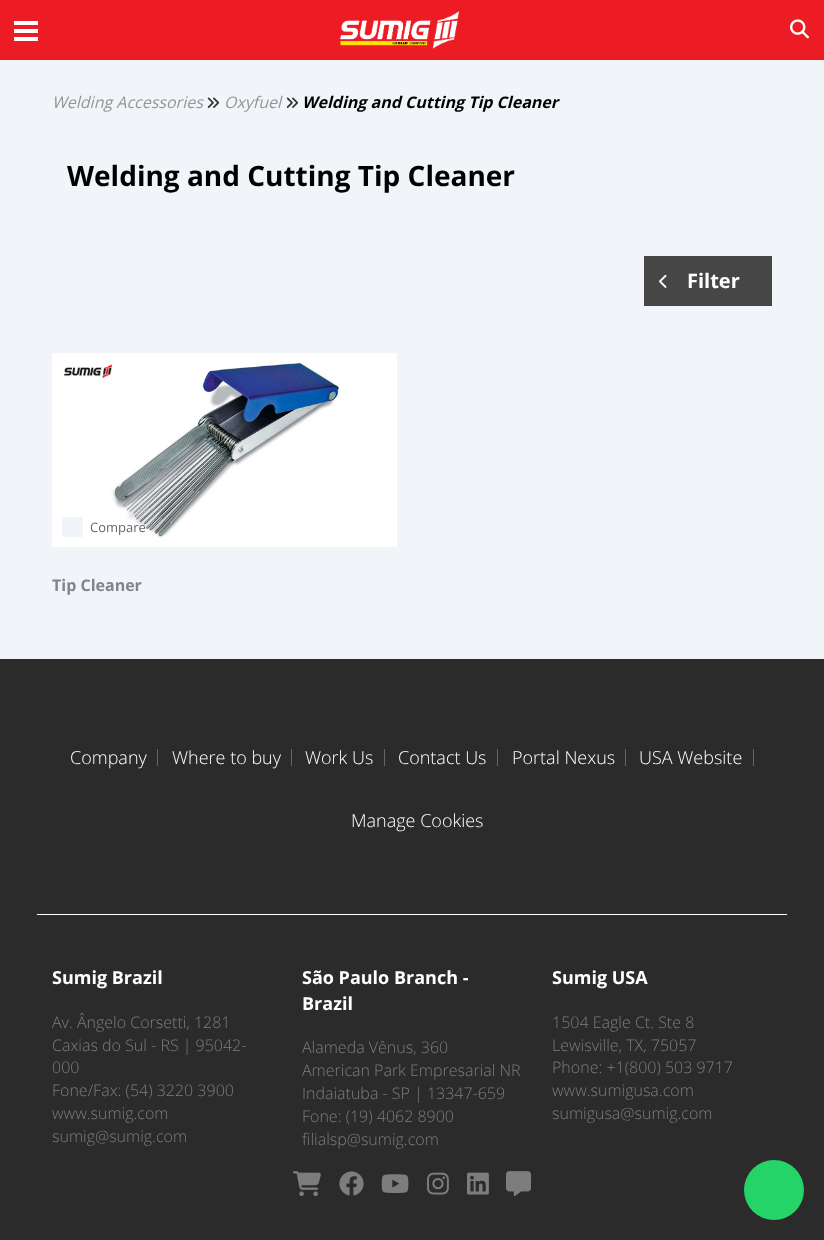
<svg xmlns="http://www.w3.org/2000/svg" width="824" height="1240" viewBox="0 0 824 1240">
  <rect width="100%" height="100%" fill="#f1f5f9"/>
  <rect x="0" y="0" width="824" height="60" fill="#ed1c24"/>
  <rect x="14" y="21" width="24" height="4" fill="#ffffff"/>
  <rect x="14" y="29" width="24" height="4" fill="#ffffff"/>
  <rect x="14" y="37" width="24" height="4" fill="#ffffff"/>
  <image x="340" y="11" width="119" height="38" href="img1.png"/>
  <image x="790" y="19" width="19" height="20" href="img2.png"/>
  <text x="52" y="108" font-family="Open Sans" font-size="16" font-style="italic" fill="#959595">Welding Accessories</text>
  <image x="207" y="97" width="13" height="11" href="img3.png"/>
  <text x="224" y="108" font-family="Open Sans" font-size="16" font-style="italic" fill="#959595">Oxyfuel</text>
  <image x="286" y="97" width="13" height="11" href="img3.png"/>
  <text x="302" y="108" font-family="Open Sans" font-size="16" font-weight="bold" font-style="italic" fill="#000000">Welding and Cutting Tip Cleaner</text>
  <text x="67" y="186" font-family="Open Sans" font-size="28" font-weight="bold" fill="#000000">Welding and Cutting Tip Cleaner</text>
  <rect x="644" y="256" width="128" height="50" fill="#464646"/>
  <image x="659" y="274" width="8" height="14" href="img4.png"/>
  <text x="687" y="288" font-family="Open Sans" font-size="20" font-weight="bold" fill="#ffffff">Filter</text>
  <image x="52" y="353" width="345" height="194" href="img5.png"/>
  <rect x="62" y="517" width="21" height="20" fill="#f1f4f9"/>
  <text x="90" y="532" font-family="Open Sans" font-size="13" fill="#666666">Compare</text>
  <text x="52" y="591" font-family="Open Sans" font-size="16" font-weight="bold" fill="#83838f">Tip Cleaner</text>
  <rect x="0" y="659" width="824" height="581" fill="#2b2b2b"/>
  <rect x="37" y="914" width="750" height="1" fill="#ffffff"/>
  <rect x="157" y="749" width="1" height="17" fill="#666666"/>
  <text x="70" y="764" font-family="Open Sans" font-size="18" font-weight="300" fill="#ffffff">Company</text>
  <rect x="291" y="749" width="1" height="17" fill="#666666"/>
  <text x="172" y="764" font-family="Open Sans" font-size="18" font-weight="300" fill="#ffffff">Where to buy</text>
  <rect x="384" y="749" width="1" height="17" fill="#666666"/>
  <text x="305" y="764" font-family="Open Sans" font-size="18" font-weight="300" fill="#ffffff">Work Us</text>
  <rect x="497" y="749" width="1" height="17" fill="#666666"/>
  <text x="398" y="764" font-family="Open Sans" font-size="18" font-weight="300" fill="#ffffff">Contact Us</text>
  <rect x="625" y="749" width="1" height="17" fill="#666666"/>
  <text x="512" y="764" font-family="Open Sans" font-size="18" font-weight="300" fill="#ffffff">Portal Nexus</text>
  <rect x="753" y="749" width="1" height="17" fill="#666666"/>
  <text x="639" y="764" font-family="Open Sans" font-size="18" font-weight="300" fill="#ffffff">USA Website</text>
  <text x="351" y="827" font-family="Open Sans" font-size="18" font-weight="300" fill="#ffffff">Manage Cookies</text>
  <text x="52" y="984" font-family="Open Sans" font-size="18" font-weight="bold" fill="#ffffff">Sumig Brazil</text>
  <text x="52" y="1028" font-family="Open Sans" font-size="16" font-weight="300" fill="#7d7d7d">Av. Ângelo Corsetti, 1281</text>
  <text x="52" y="1051" font-family="Open Sans" font-size="16" font-weight="300" fill="#7d7d7d">Caxias do Sul - RS | 95042-</text>
  <text x="52" y="1073" font-family="Open Sans" font-size="16" font-weight="300" fill="#7d7d7d">000</text>
  <text x="52" y="1096" font-family="Open Sans" font-size="16" font-weight="300" fill="#7d7d7d">Fone/Fax: (54) 3220 3900</text>
  <text x="52" y="1119" font-family="Open Sans" font-size="16" font-weight="300" fill="#7d7d7d">www.sumig.com</text>
  <text x="52" y="1142" font-family="Open Sans" font-size="16" font-weight="300" fill="#7d7d7d">sumig@sumig.com</text>
  <text x="302" y="984" font-family="Open Sans" font-size="18" font-weight="bold" fill="#ffffff">São Paulo Branch -</text>
  <text x="302" y="1010" font-family="Open Sans" font-size="18" font-weight="bold" fill="#ffffff">Brazil</text>
  <text x="302" y="1053" font-family="Open Sans" font-size="16" font-weight="300" fill="#7d7d7d">Alameda Vênus, 360</text>
  <text x="302" y="1076" font-family="Open Sans" font-size="16" font-weight="300" fill="#7d7d7d">American Park Empresarial NR</text>
  <text x="302" y="1099" font-family="Open Sans" font-size="16" font-weight="300" fill="#7d7d7d">Indaiatuba - SP | 13347-659</text>
  <text x="302" y="1122" font-family="Open Sans" font-size="16" font-weight="300" fill="#7d7d7d">Fone: (19) 4062 8900</text>
  <text x="302" y="1145" font-family="Open Sans" font-size="16" font-weight="300" fill="#7d7d7d">filialsp@sumig.com</text>
  <text x="552" y="984" font-family="Open Sans" font-size="18" font-weight="bold" fill="#ffffff">Sumig USA</text>
  <text x="552" y="1028" font-family="Open Sans" font-size="16" font-weight="300" fill="#7d7d7d">1504 Eagle Ct. Ste 8</text>
  <text x="552" y="1051" font-family="Open Sans" font-size="16" font-weight="300" fill="#7d7d7d">Lewisville, TX, 75057</text>
  <text x="552" y="1073" font-family="Open Sans" font-size="16" font-weight="300" fill="#7d7d7d">Phone: +1(800) 503 9717</text>
  <text x="552" y="1096" font-family="Open Sans" font-size="16" font-weight="300" fill="#7d7d7d">www.sumigusa.com</text>
  <text x="552" y="1119" font-family="Open Sans" font-size="16" font-weight="300" fill="#7d7d7d">sumigusa@sumig.com</text>
  <image x="293" y="1171" width="28" height="26" href="img6.png"/>
  <image x="339" y="1171" width="25" height="25" href="img7.png"/>
  <image x="381" y="1174" width="28" height="19" href="img8.png"/>
  <image x="427" y="1172" width="22" height="23" href="img9.png"/>
  <image x="467" y="1172" width="22" height="23" href="img10.png"/>
  <image x="506" y="1171" width="25" height="25" href="img11.png"/>
  <circle cx="774" cy="1190" r="30" fill="#25d366"/>
</svg>
